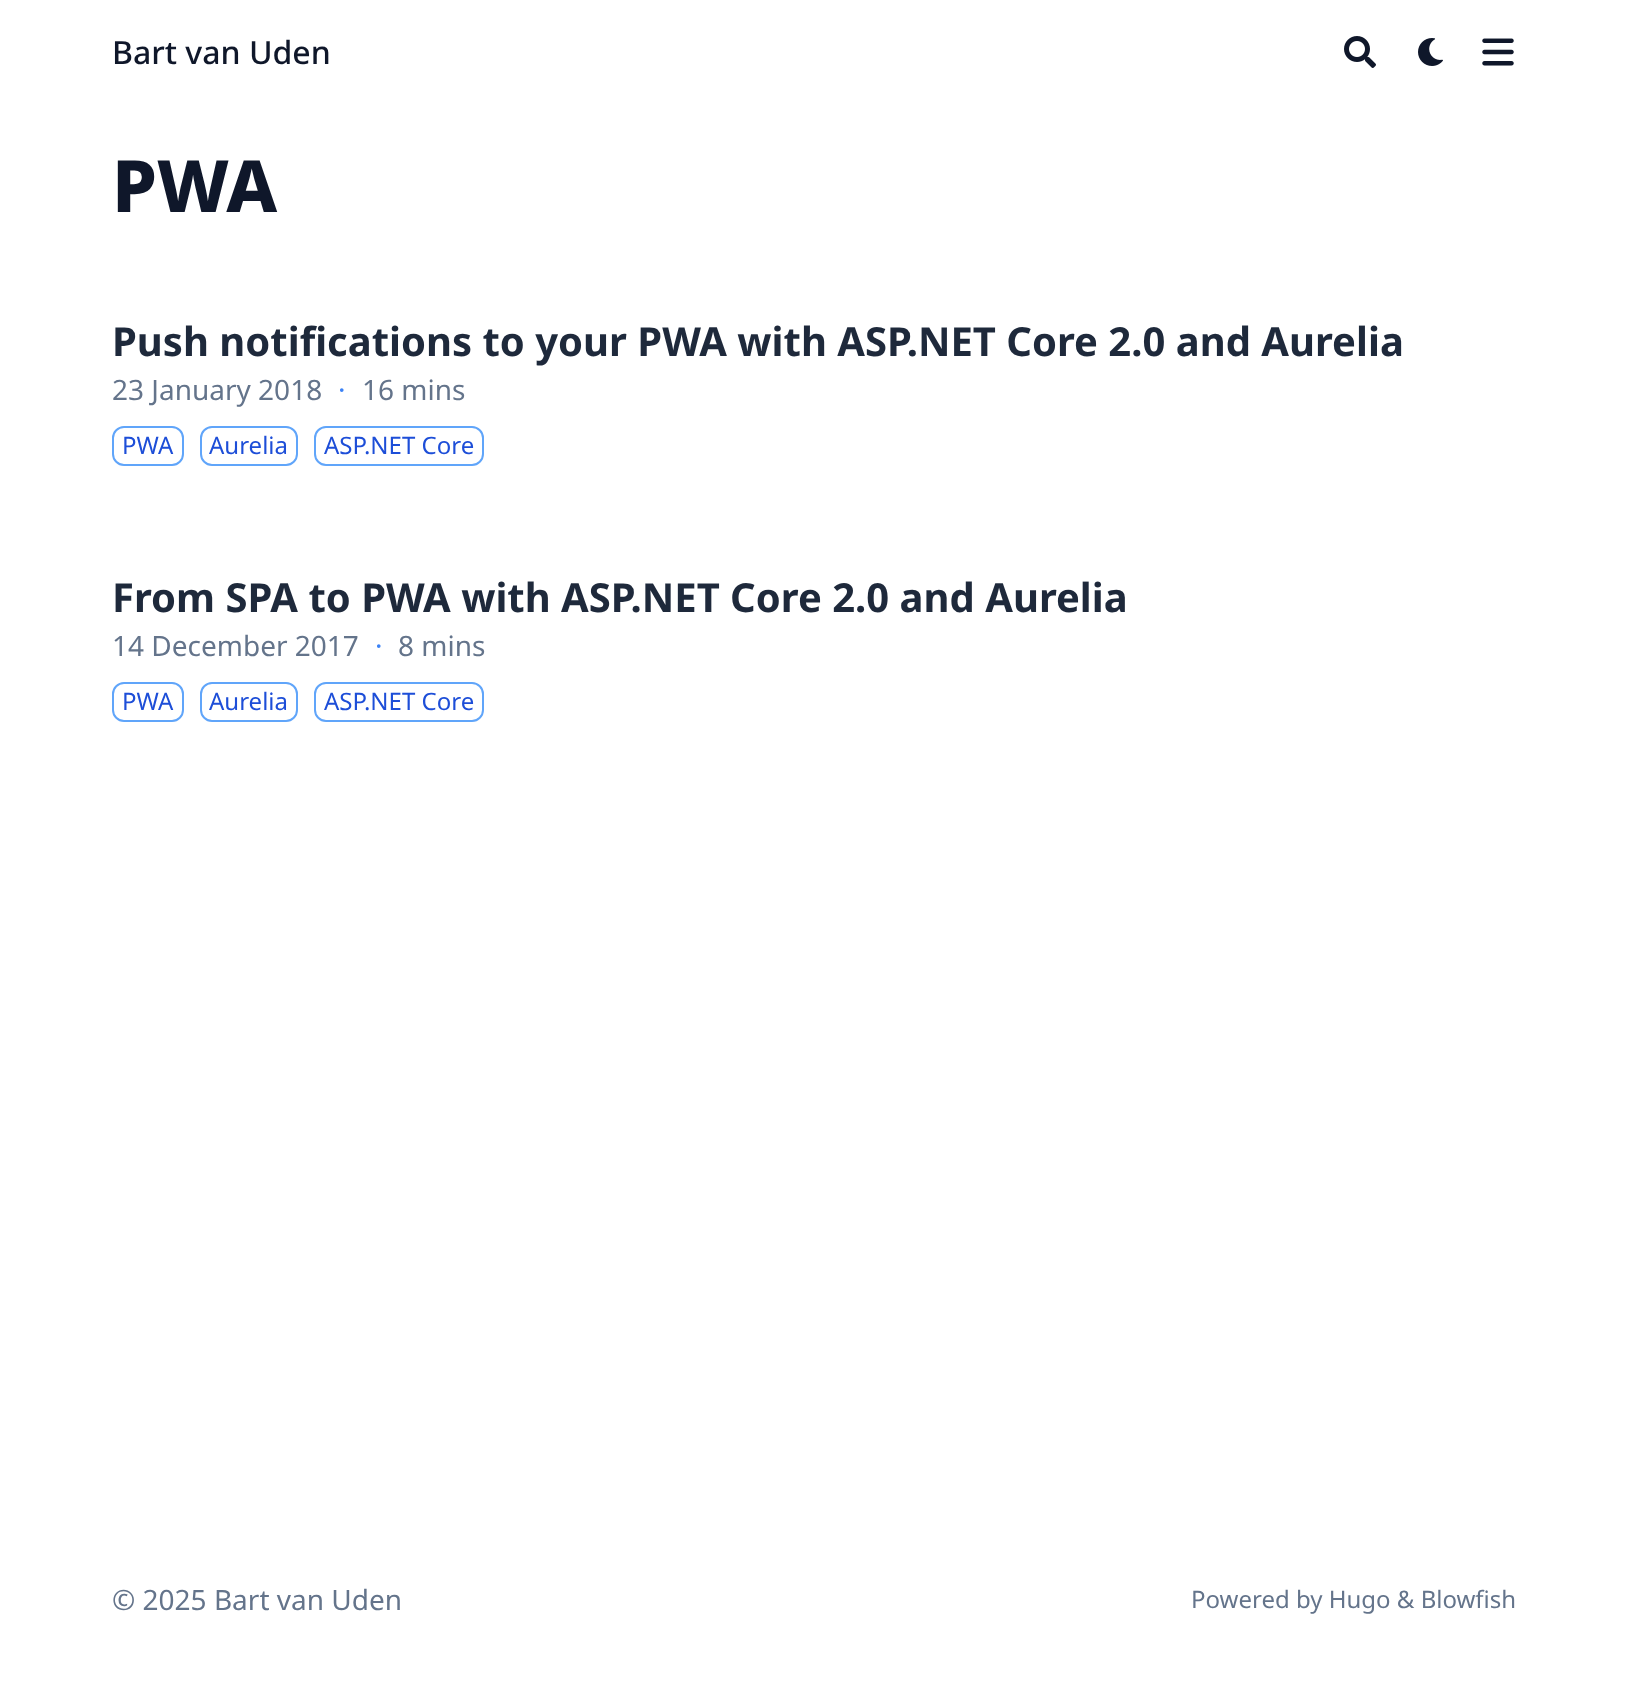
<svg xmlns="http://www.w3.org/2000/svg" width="1627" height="1699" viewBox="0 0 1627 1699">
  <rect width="100%" height="100%" fill="#ffffff"/>
  <text x="112" y="64" font-family="Noto Sans" font-size="32" font-weight="500" fill="#0f172a">Bart van Uden</text>
  <image x="1344" y="36" width="32" height="32" href="img1.png"/>
  <image x="1418" y="38" width="25" height="28" href="img2.png"/>
  <image x="1482" y="38" width="32" height="28" href="img3.png"/>
  <text x="112" y="212" font-family="Noto Sans" font-size="72" font-weight="800" fill="#0f172a">PWA</text>
  <text x="112" y="356" font-family="Noto Sans" font-size="40" font-weight="bold" fill="#1e293b">Push notifications to your PWA with ASP.NET Core 2.0 and Aurelia</text>
  <text x="112" y="400" font-family="Noto Sans" font-size="28" fill="#64748b">23 January 2018</text>
  <text x="338" y="400" font-family="Noto Sans" font-size="28" fill="#3b82f6">·</text>
  <text x="362" y="400" font-family="Noto Sans" font-size="28" fill="#64748b">16 mins</text>
  <rect x="113" y="427" width="70" height="38" rx="11" fill="none" stroke="#60a5fa" stroke-width="2"/>
  <text x="122" y="454" font-family="Noto Sans" font-size="24" fill="#1d4ed8">PWA</text>
  <rect x="201" y="427" width="96" height="38" rx="11" fill="none" stroke="#60a5fa" stroke-width="2"/>
  <text x="209" y="454" font-family="Noto Sans" font-size="24" fill="#1d4ed8">Aurelia</text>
  <rect x="315" y="427" width="168" height="38" rx="11" fill="none" stroke="#60a5fa" stroke-width="2"/>
  <text x="324" y="454" font-family="Noto Sans" font-size="24" fill="#1d4ed8">ASP.NET Core</text>
  <text x="112" y="612" font-family="Noto Sans" font-size="40" font-weight="bold" fill="#1e293b">From SPA to PWA with ASP.NET Core 2.0 and Aurelia</text>
  <text x="112" y="656" font-family="Noto Sans" font-size="28" fill="#64748b">14 December 2017</text>
  <text x="375" y="656" font-family="Noto Sans" font-size="28" fill="#3b82f6">·</text>
  <text x="398" y="656" font-family="Noto Sans" font-size="28" fill="#64748b">8 mins</text>
  <rect x="113" y="683" width="70" height="38" rx="11" fill="none" stroke="#60a5fa" stroke-width="2"/>
  <text x="122" y="710" font-family="Noto Sans" font-size="24" fill="#1d4ed8">PWA</text>
  <rect x="201" y="683" width="96" height="38" rx="11" fill="none" stroke="#60a5fa" stroke-width="2"/>
  <text x="209" y="710" font-family="Noto Sans" font-size="24" fill="#1d4ed8">Aurelia</text>
  <rect x="315" y="683" width="168" height="38" rx="11" fill="none" stroke="#60a5fa" stroke-width="2"/>
  <text x="324" y="710" font-family="Noto Sans" font-size="24" fill="#1d4ed8">ASP.NET Core</text>
  <text x="112" y="1610" font-family="Noto Sans" font-size="28" fill="#64748b">© 2025 Bart van Uden</text>
  <text x="1191" y="1608" font-family="Noto Sans" font-size="24" fill="#64748b">Powered by Hugo &amp; Blowfish</text>
</svg>
